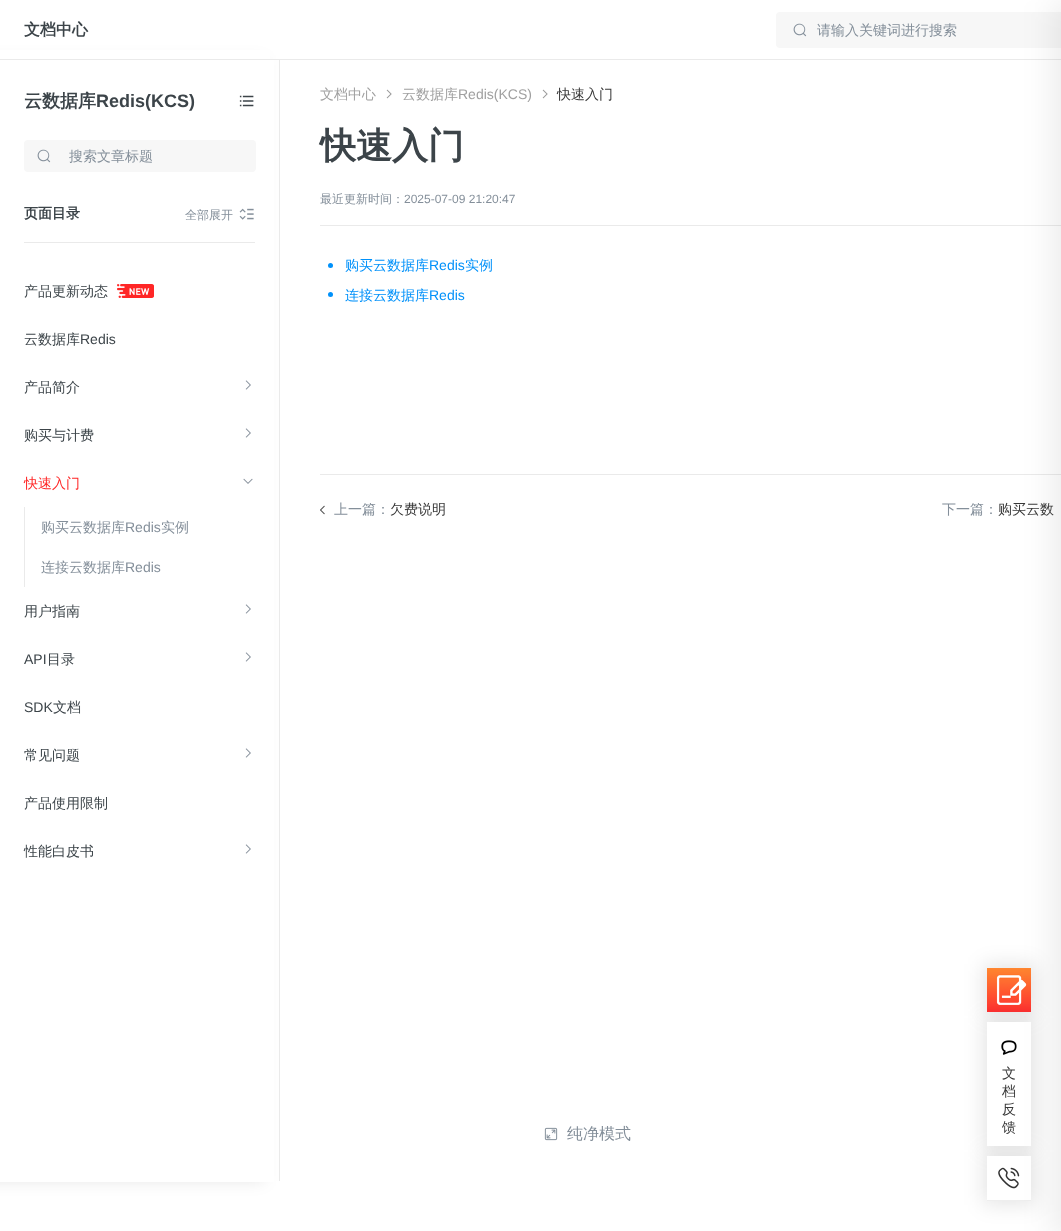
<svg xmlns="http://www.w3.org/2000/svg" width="1061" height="1231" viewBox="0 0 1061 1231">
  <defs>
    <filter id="blur1" x="-50%" y="-200%" width="200%" height="500%"><feGaussianBlur stdDeviation="8"/></filter>
    <filter id="blur2" x="-50%" y="-200%" width="200%" height="500%"><feGaussianBlur stdDeviation="10"/></filter>
    <filter id="blur3" x="-50%" y="-200%" width="200%" height="500%"><feGaussianBlur stdDeviation="16"/></filter>
  </defs>
  <rect width="100%" height="100%" fill="#ffffff"/>
  <rect x="279" y="60" width="1" height="1121" fill="#eaeaea"/>
  <rect x="-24" y="60" width="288" height="1121" fill="#000000" fill-opacity="0.1" filter="url(#blur1)"/>
  <rect x="0" y="50" width="270" height="9" fill="#ffffff"/>
  <rect x="0" y="59" width="1061" height="1" fill="#eaeaea"/>
  <text x="24" y="35" font-family="WenQuanYi Zen Hei" font-size="16" font-weight="bold" fill="#3c4449">文档中心</text>
  <rect x="776" y="12" width="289" height="36" rx="4" fill="#f7f7f7"/>
  <image x="793" y="23" width="14" height="14" href="img1.png"/>
  <text x="817" y="35" font-family="WenQuanYi Zen Hei" font-size="14" font-weight="500" fill="#848f9a">请输入关键词进行搜索</text>
  <rect x="320" y="225" width="741" height="1" fill="#eaeaea"/>
  <rect x="320" y="474" width="741" height="1" fill="#eaeaea"/>
  <rect x="983" y="964" width="52" height="52" fill="#000000" fill-opacity="0.1" filter="url(#blur2)"/>
  <image x="987" y="968" width="44" height="44" href="img10.png"/>
  <rect x="983" y="1018" width="52" height="132" fill="#000000" fill-opacity="0.1" filter="url(#blur2)"/>
  <rect x="983" y="1152" width="52" height="53" fill="#000000" fill-opacity="0.1" filter="url(#blur2)"/>
  <rect x="987" y="1022" width="44" height="124" fill="#ffffff"/>
  <image x="1001" y="1040" width="16" height="15" href="img11.png"/>
  <rect x="987" y="1200" width="44" height="1" fill="#eeeeee"/>
  <rect x="987" y="1156" width="44" height="44" fill="#ffffff"/>
  <image x="998" y="1167" width="22" height="22" href="img12.png"/>
  <rect x="1053" y="0" width="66" height="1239" rx="10" fill="#000000" fill-opacity="0.08" filter="url(#blur3)"/>
  <rect x="0" y="60" width="274" height="1122" fill="#ffffff"/>
  <text x="24" y="107" font-family="WenQuanYi Zen Hei" font-size="18" font-weight="bold" fill="#3c4449">云数据库</text>
  <text x="96" y="107" font-family="Liberation Sans" font-size="18" font-weight="bold" fill="#3c4449">Redis(KCS)</text>
  <image x="239" y="95" width="15" height="12" href="img2.png"/>
  <rect x="24" y="140" width="232" height="32" rx="4" fill="#f7f7f7"/>
  <image x="37" y="149" width="14" height="14" href="img1.png"/>
  <text x="69" y="161" font-family="WenQuanYi Zen Hei" font-size="14" font-weight="500" fill="#848f9a">搜索文章标题</text>
  <rect x="24" y="242" width="231" height="1" fill="#eaeaea"/>
  <text x="24" y="218" font-family="WenQuanYi Zen Hei" font-size="14" font-weight="bold" fill="#3c4449">页面目录</text>
  <text x="185" y="219" font-family="WenQuanYi Zen Hei" font-size="12" font-weight="500" fill="#848f9a">全部展开</text>
  <image x="239" y="208" width="15" height="12" href="img3.png"/>
  <text x="24" y="296" font-family="WenQuanYi Zen Hei" font-size="14" font-weight="500" fill="#3c4449">产品更新动态</text>
  <image x="117" y="284" width="37" height="14" href="img4.png"/>
  <text x="24" y="344" font-family="WenQuanYi Zen Hei" font-size="14" font-weight="500" fill="#3c4449">云数据库</text>
  <text x="80" y="344" font-family="Liberation Sans" font-size="14" fill="#3c4449">Redis</text>
  <text x="24" y="392" font-family="WenQuanYi Zen Hei" font-size="14" font-weight="500" fill="#3c4449">产品简介</text>
  <image x="245" y="380" width="6" height="10" href="img5.png"/>
  <text x="24" y="440" font-family="WenQuanYi Zen Hei" font-size="14" font-weight="500" fill="#3c4449">购买与计费</text>
  <image x="245" y="428" width="6" height="10" href="img5.png"/>
  <text x="24" y="488" font-family="WenQuanYi Zen Hei" font-size="14" font-weight="500" fill="#ff2626">快速入门</text>
  <image x="243" y="478" width="10" height="6" href="img6.png"/>
  <rect x="24" y="507" width="1" height="80" fill="#eaeaea"/>
  <text x="41" y="532" font-family="WenQuanYi Zen Hei" font-size="14" font-weight="500" fill="#848f9a">购买云数据库</text>
  <text x="125" y="532" font-family="Liberation Sans" font-size="14" fill="#848f9a">Redis</text>
  <text x="161" y="532" font-family="WenQuanYi Zen Hei" font-size="14" font-weight="500" fill="#848f9a">实例</text>
  <text x="41" y="572" font-family="WenQuanYi Zen Hei" font-size="14" font-weight="500" fill="#848f9a">连接云数据库</text>
  <text x="125" y="572" font-family="Liberation Sans" font-size="14" fill="#848f9a">Redis</text>
  <text x="24" y="616" font-family="WenQuanYi Zen Hei" font-size="14" font-weight="500" fill="#3c4449">用户指南</text>
  <image x="245" y="604" width="6" height="10" href="img5.png"/>
  <text x="24" y="664" font-family="Liberation Sans" font-size="14" fill="#3c4449">API</text>
  <text x="47" y="664" font-family="WenQuanYi Zen Hei" font-size="14" font-weight="500" fill="#3c4449">目录</text>
  <image x="245" y="652" width="6" height="10" href="img5.png"/>
  <text x="24" y="712" font-family="Liberation Sans" font-size="14" fill="#3c4449">SDK</text>
  <text x="53" y="712" font-family="WenQuanYi Zen Hei" font-size="14" font-weight="500" fill="#3c4449">文档</text>
  <text x="24" y="760" font-family="WenQuanYi Zen Hei" font-size="14" font-weight="500" fill="#3c4449">常见问题</text>
  <image x="245" y="748" width="6" height="10" href="img5.png"/>
  <text x="24" y="808" font-family="WenQuanYi Zen Hei" font-size="14" font-weight="500" fill="#3c4449">产品使用限制</text>
  <text x="24" y="856" font-family="WenQuanYi Zen Hei" font-size="14" font-weight="500" fill="#3c4449">性能白皮书</text>
  <image x="245" y="844" width="6" height="10" href="img5.png"/>
  <text x="320" y="99" font-family="WenQuanYi Zen Hei" font-size="14" font-weight="500" fill="#a0a0a0">文档中心</text>
  <image x="386" y="89" width="6" height="10" href="img7.png"/>
  <text x="402" y="99" font-family="WenQuanYi Zen Hei" font-size="14" font-weight="500" fill="#a0a0a0">云数据库</text>
  <text x="458" y="99" font-family="Liberation Sans" font-size="14" fill="#a0a0a0">Redis(KCS)</text>
  <image x="542" y="89" width="6" height="10" href="img7.png"/>
  <text x="557" y="99" font-family="WenQuanYi Zen Hei" font-size="14" font-weight="500" fill="#383838">快速入门</text>
  <text x="320" y="158" font-family="WenQuanYi Zen Hei" font-size="36" font-weight="bold" fill="#3c4449">快速入门</text>
  <text x="320" y="203" font-family="WenQuanYi Zen Hei" font-size="12" font-weight="500" fill="#848f9a">最近更新时间：</text>
  <text x="404" y="203" font-family="Liberation Sans" font-size="12" fill="#848f9a">2025-07-09 21:20:47</text>
  <circle cx="330.5" cy="265.5" r="2.5" fill="#0091fa"/>
  <text x="345" y="270" font-family="WenQuanYi Zen Hei" font-size="14" font-weight="500" fill="#0091fa">购买云数据库</text>
  <text x="429" y="270" font-family="Liberation Sans" font-size="14" fill="#0091fa">Redis</text>
  <text x="465" y="270" font-family="WenQuanYi Zen Hei" font-size="14" font-weight="500" fill="#0091fa">实例</text>
  <circle cx="330.5" cy="294.5" r="2.5" fill="#0091fa"/>
  <text x="345" y="300" font-family="WenQuanYi Zen Hei" font-size="14" font-weight="500" fill="#0091fa">连接云数据库</text>
  <text x="429" y="300" font-family="Liberation Sans" font-size="14" fill="#0091fa">Redis</text>
  <image x="320" y="505" width="5" height="10" href="img8.png"/>
  <text x="334" y="514" font-family="WenQuanYi Zen Hei" font-size="14" font-weight="500" fill="#848f9a">上一篇：</text>
  <text x="390" y="514" font-family="WenQuanYi Zen Hei" font-size="14" font-weight="500" fill="#383838">欠费说明</text>
  <text x="942" y="514" font-family="WenQuanYi Zen Hei" font-size="14" font-weight="500" fill="#848f9a">下一篇：</text>
  <text x="998" y="514" font-family="WenQuanYi Zen Hei" font-size="14" font-weight="500" fill="#383838">购买云数</text>
  <image x="544" y="1127" width="14" height="14" href="img9.png"/>
  <text x="567" y="1139" font-family="WenQuanYi Zen Hei" font-size="16" font-weight="500" fill="#848f9a">纯净模式</text>
  <text x="1002" y="1078" font-family="WenQuanYi Zen Hei" font-size="14" font-weight="500" fill="#383838">文</text>
  <text x="1002" y="1096" font-family="WenQuanYi Zen Hei" font-size="14" font-weight="500" fill="#383838">档</text>
  <text x="1002" y="1114" font-family="WenQuanYi Zen Hei" font-size="14" font-weight="500" fill="#383838">反</text>
  <text x="1002" y="1132" font-family="WenQuanYi Zen Hei" font-size="14" font-weight="500" fill="#383838">馈</text>
</svg>
